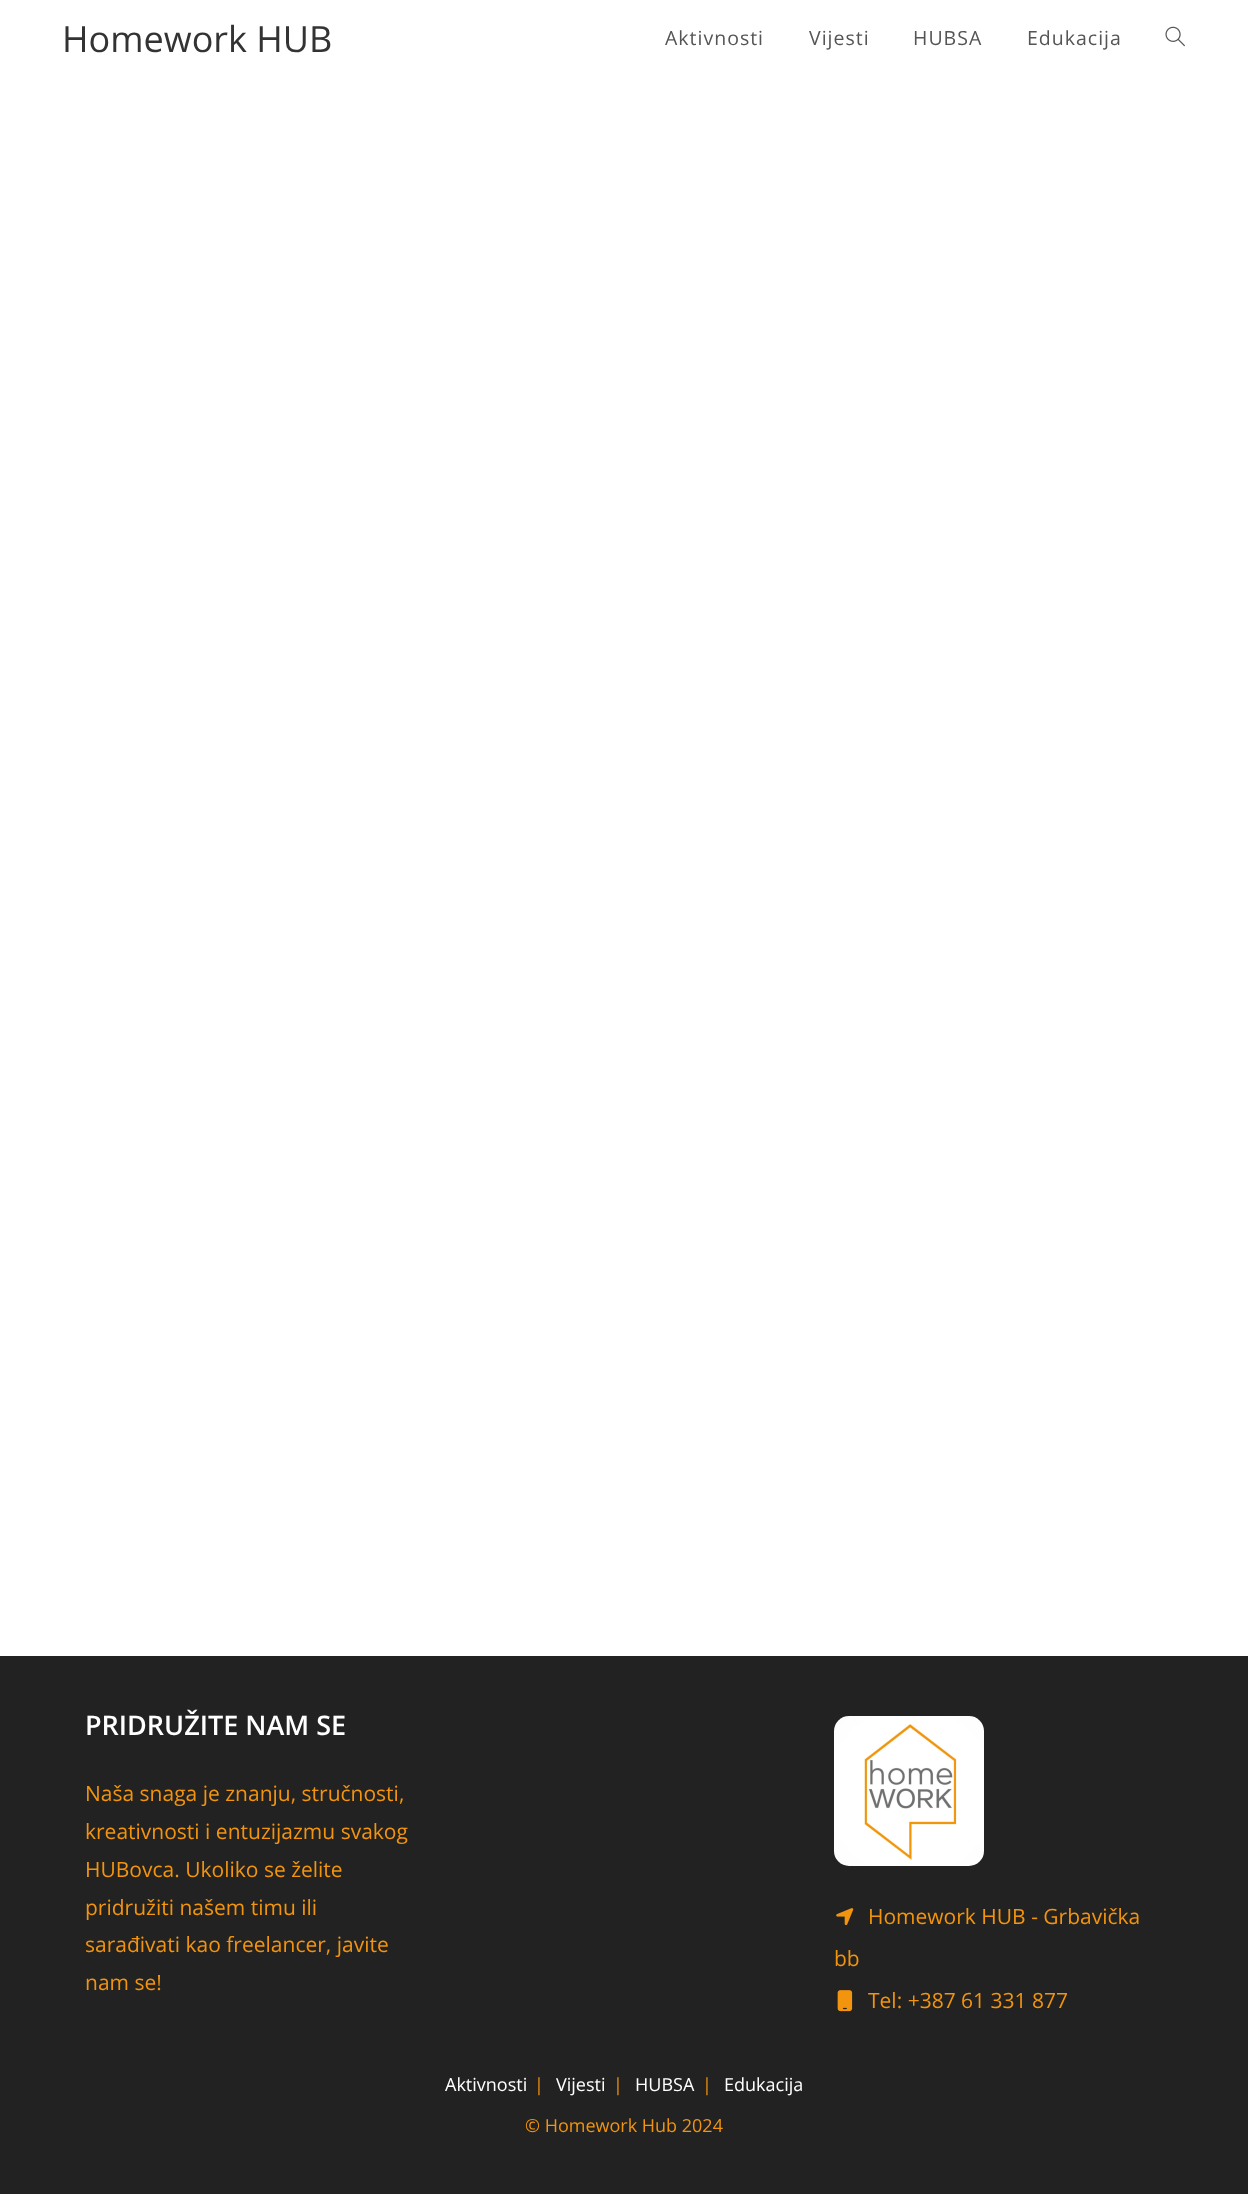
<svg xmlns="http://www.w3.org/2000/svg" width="1248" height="2194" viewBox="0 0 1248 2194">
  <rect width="100%" height="100%" fill="#ffffff"/>
  <text x="62" y="52" font-family="Open Sans" font-size="36" fill="#333333">Homework HUB</text>
  <text x="665" y="45" font-family="Open Sans" font-size="19.5" letter-spacing="1" fill="#555555">Aktivnosti</text>
  <text x="809" y="45" font-family="Open Sans" font-size="19.5" letter-spacing="1" fill="#555555">Vijesti</text>
  <text x="913" y="45" font-family="Open Sans" font-size="19.5" letter-spacing="1" fill="#555555">HUBSA</text>
  <text x="1027" y="45" font-family="Open Sans" font-size="19.5" letter-spacing="1" fill="#555555">Edukacija</text>
  <image x="1165" y="26" width="20" height="21" href="img1.png"/>
  <rect x="0" y="1656" width="1248" height="538" fill="#222222"/>
  <text x="85" y="1735" font-family="Open Sans" font-size="27" font-weight="600" fill="#ffffff">PRIDRUŽITE NAM SE</text>
  <text x="85" y="1801" font-family="Open Sans" font-size="21" fill="#f2940e">Naša snaga je znanju, stručnosti,</text>
  <text x="85" y="1839" font-family="Open Sans" font-size="21" fill="#f2940e">kreativnosti i entuzijazmu svakog</text>
  <text x="85" y="1877" font-family="Open Sans" font-size="21" fill="#f2940e">HUBovca. Ukoliko se želite</text>
  <text x="85" y="1915" font-family="Open Sans" font-size="21" fill="#f2940e">pridružiti našem timu ili</text>
  <text x="85" y="1952" font-family="Open Sans" font-size="21" fill="#f2940e">sarađivati kao freelancer, javite</text>
  <text x="85" y="1990" font-family="Open Sans" font-size="21" fill="#f2940e">nam se!</text>
  <image x="834" y="1716" width="150" height="150" href="img2.png"/>
  <image x="836" y="1908" width="18" height="18" href="img3.png"/>
  <text x="868" y="1924" font-family="Open Sans" font-size="21" fill="#f2940e">Homework HUB - Grbavička</text>
  <text x="834" y="1966" font-family="Open Sans" font-size="21" fill="#f2940e">bb</text>
  <image x="837" y="1990" width="16" height="22" href="img4.png"/>
  <text x="868" y="2008" font-family="Open Sans" font-size="21" fill="#f2940e">Tel: +387 61 331 877</text>
  <text x="445" y="2091" font-family="Open Sans" font-size="18" fill="#ffffff">Aktivnosti</text>
  <text x="534" y="2091" font-family="Open Sans" font-size="18" fill="#f2940e">|</text>
  <text x="556" y="2091" font-family="Open Sans" font-size="18" fill="#ffffff">Vijesti</text>
  <text x="613" y="2091" font-family="Open Sans" font-size="18" fill="#f2940e">|</text>
  <text x="635" y="2091" font-family="Open Sans" font-size="18" fill="#ffffff">HUBSA</text>
  <text x="702" y="2091" font-family="Open Sans" font-size="18" fill="#f2940e">|</text>
  <text x="724" y="2091" font-family="Open Sans" font-size="18" fill="#ffffff">Edukacija</text>
  <text x="525" y="2132" font-family="Open Sans" font-size="18" fill="#f2940e">© Homework Hub 2024</text>
</svg>
